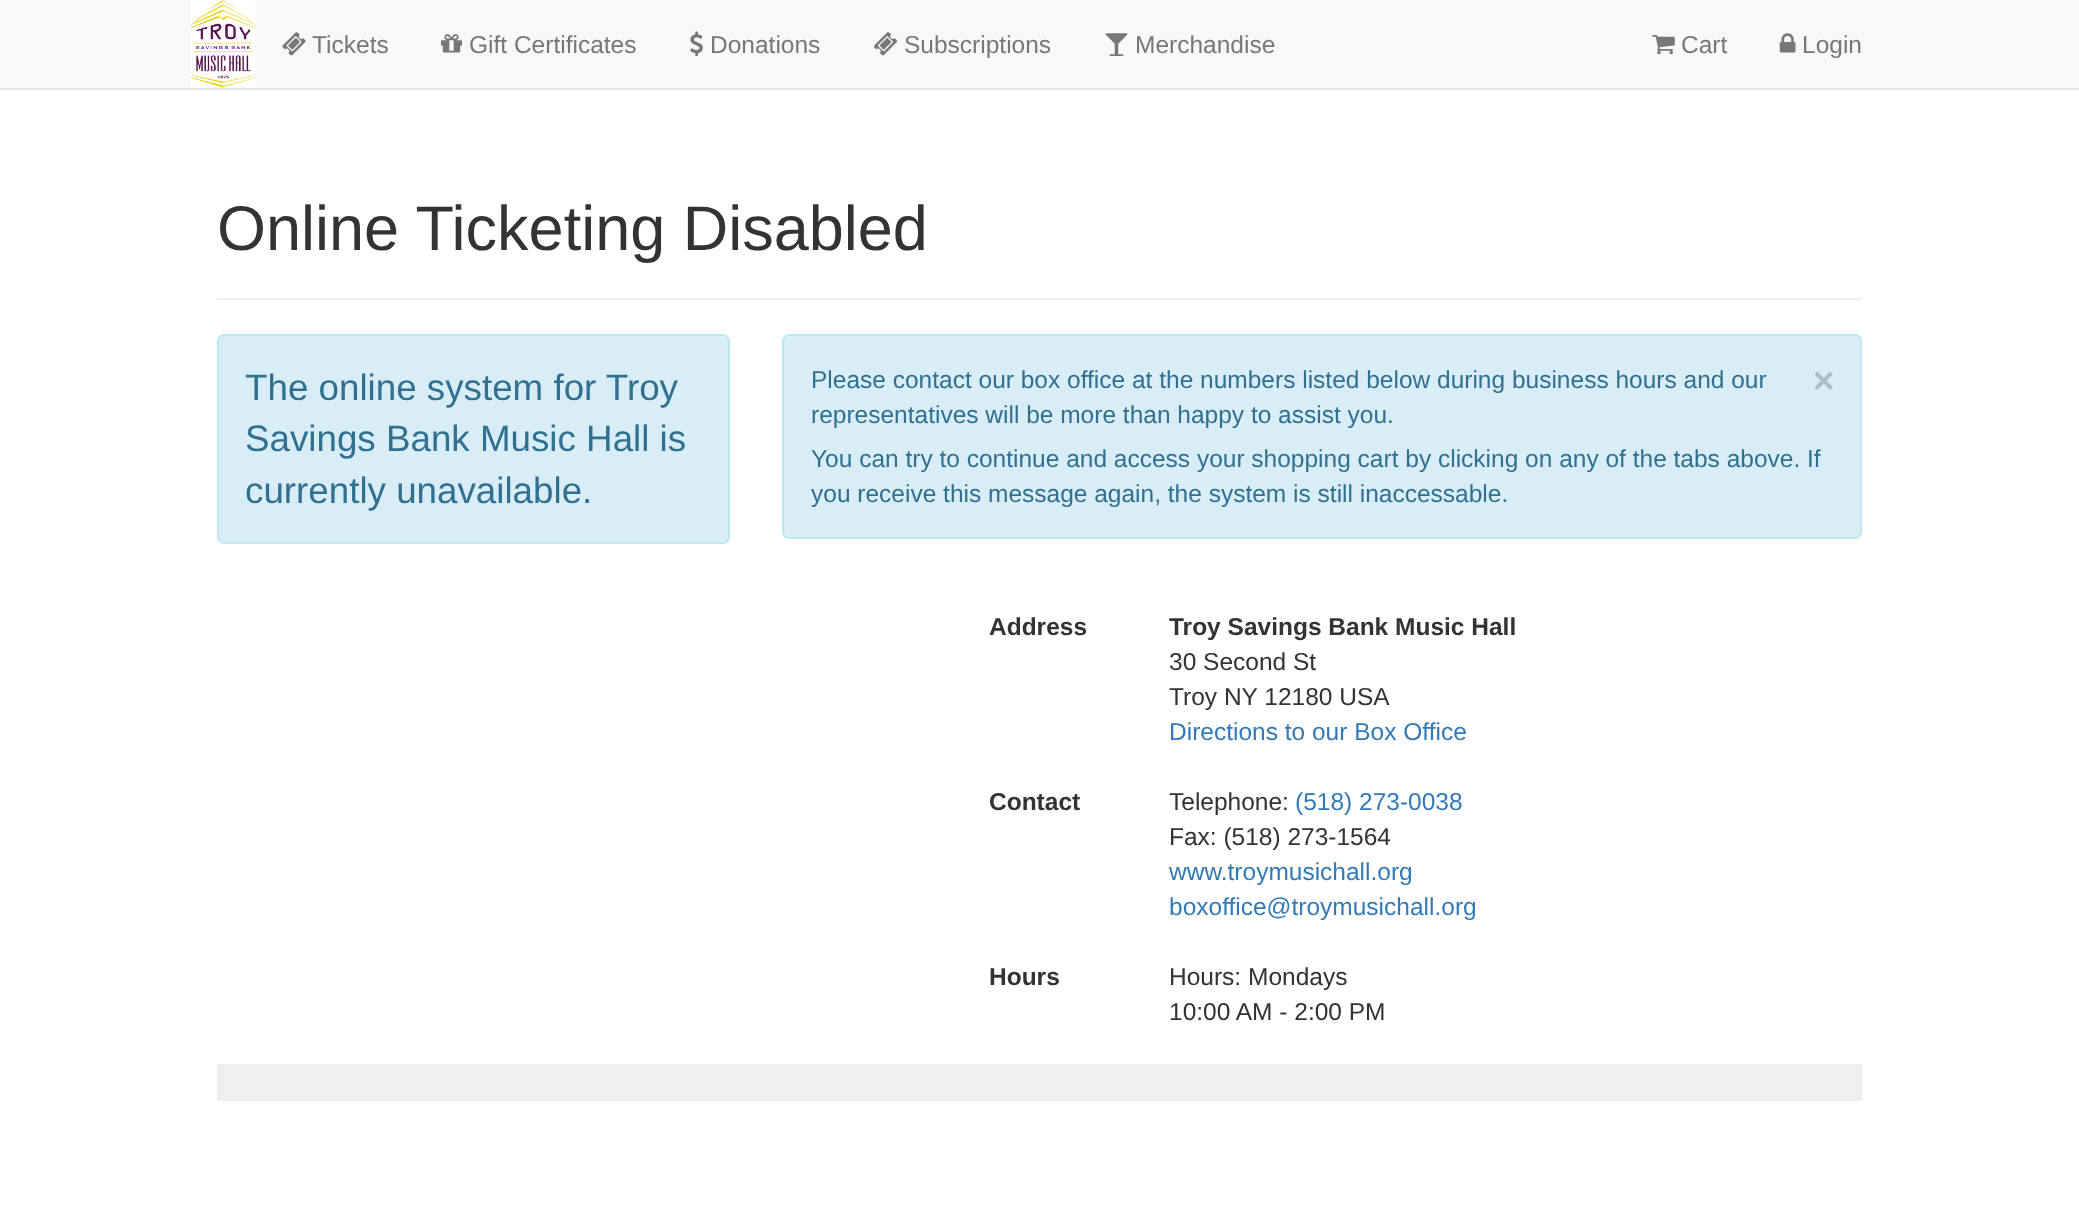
<svg xmlns="http://www.w3.org/2000/svg" width="2079" height="1228" viewBox="0 0 2079 1228">
  <rect width="100%" height="100%" fill="#ffffff"/>
  <rect x="0" y="0" width="2079" height="88" fill="#f8f8f8"/>
  <rect x="0" y="88" width="2079" height="2" fill="#e7e7e7"/>
  <image x="190" y="0" width="66" height="88" href="img1.png"/>
  <image x="282" y="32" width="24" height="24" href="img2.png"/>
  <text x="312" y="53" font-family="Liberation Sans" font-size="24.5" fill="#777777">Tickets</text>
  <image x="441" y="34" width="21" height="19" href="img3.png"/>
  <text x="469" y="53" font-family="Liberation Sans" font-size="24.5" fill="#777777">Gift Certificates</text>
  <image x="690" y="31" width="13" height="25" href="img4.png"/>
  <text x="710" y="53" font-family="Liberation Sans" font-size="24.5" fill="#777777">Donations</text>
  <image x="874" y="32" width="23" height="24" href="img5.png"/>
  <text x="904" y="53" font-family="Liberation Sans" font-size="24.5" fill="#777777">Subscriptions</text>
  <image x="1105" y="33" width="23" height="23" href="img6.png"/>
  <text x="1135" y="53" font-family="Liberation Sans" font-size="24.5" fill="#777777">Merchandise</text>
  <image x="1652" y="35" width="23" height="20" href="img7.png"/>
  <text x="1681" y="53" font-family="Liberation Sans" font-size="24.5" fill="#777777">Cart</text>
  <image x="1779" y="33" width="17" height="20" href="img8.png"/>
  <text x="1802" y="53" font-family="Liberation Sans" font-size="24.5" fill="#777777">Login</text>
  <rect x="217" y="298" width="1645" height="2" fill="#eeeeee"/>
  <text x="217" y="250" font-family="Liberation Sans" font-size="63" fill="#333333">Online Ticketing Disabled</text>
  <rect x="218" y="335" width="511" height="208" rx="6" fill="#d9edf7" stroke="#bce8f1" stroke-width="2"/>
  <text x="245" y="400" font-family="Liberation Sans" font-size="36.75" fill="#31708f">The online system for Troy</text>
  <text x="245" y="451" font-family="Liberation Sans" font-size="36.75" fill="#31708f">Savings Bank Music Hall is</text>
  <text x="245" y="503" font-family="Liberation Sans" font-size="36.75" fill="#31708f">currently unavailable.</text>
  <rect x="783" y="335" width="1078" height="203" rx="6" fill="#d9edf7" stroke="#bce8f1" stroke-width="2"/>
  <text x="811" y="388" font-family="Liberation Sans" font-size="24.5" fill="#31708f">Please contact our box office at the numbers listed below during business hours and our</text>
  <text x="811" y="423" font-family="Liberation Sans" font-size="24.5" fill="#31708f">representatives will be more than happy to assist you.</text>
  <text x="1813" y="393" font-family="Liberation Sans" font-size="36.75" font-weight="bold" fill="#aebec6">×</text>
  <text x="811" y="467" font-family="Liberation Sans" font-size="24.5" fill="#31708f">You can try to continue and access your shopping cart by clicking on any of the tabs above. If</text>
  <text x="811" y="502" font-family="Liberation Sans" font-size="24.5" fill="#31708f">you receive this message again, the system is still inaccessable.</text>
  <text x="989" y="635" font-family="Liberation Sans" font-size="24.5" font-weight="bold" fill="#333333">Address</text>
  <text x="1169" y="635" font-family="Liberation Sans" font-size="24.5" font-weight="bold" fill="#333333">Troy Savings Bank Music Hall</text>
  <text x="1169" y="670" font-family="Liberation Sans" font-size="24.5" fill="#333333">30 Second St</text>
  <text x="1169" y="705" font-family="Liberation Sans" font-size="24.5" fill="#333333">Troy NY 12180 USA</text>
  <text x="1169" y="740" font-family="Liberation Sans" font-size="24.5" fill="#337ab7">Directions to our Box Office</text>
  <text x="989" y="810" font-family="Liberation Sans" font-size="24.5" font-weight="bold" fill="#333333">Contact</text>
  <text x="1169" y="810" font-family="Liberation Sans" font-size="24.5" fill="#333333">Telephone:</text>
  <text x="1295" y="810" font-family="Liberation Sans" font-size="24.5" fill="#337ab7">(518) 273-0038</text>
  <text x="1169" y="845" font-family="Liberation Sans" font-size="24.5" fill="#333333">Fax: (518) 273-1564</text>
  <text x="1169" y="880" font-family="Liberation Sans" font-size="24.5" fill="#337ab7">www.troymusichall.org</text>
  <text x="1169" y="915" font-family="Liberation Sans" font-size="24.5" fill="#337ab7">boxoffice@troymusichall.org</text>
  <text x="989" y="985" font-family="Liberation Sans" font-size="24.5" font-weight="bold" fill="#333333">Hours</text>
  <text x="1169" y="985" font-family="Liberation Sans" font-size="24.5" fill="#333333">Hours: Mondays</text>
  <text x="1169" y="1020" font-family="Liberation Sans" font-size="24.5" fill="#333333">10:00 AM - 2:00 PM</text>
  <rect x="217" y="1064" width="1645" height="37" fill="#efefef"/>
</svg>
